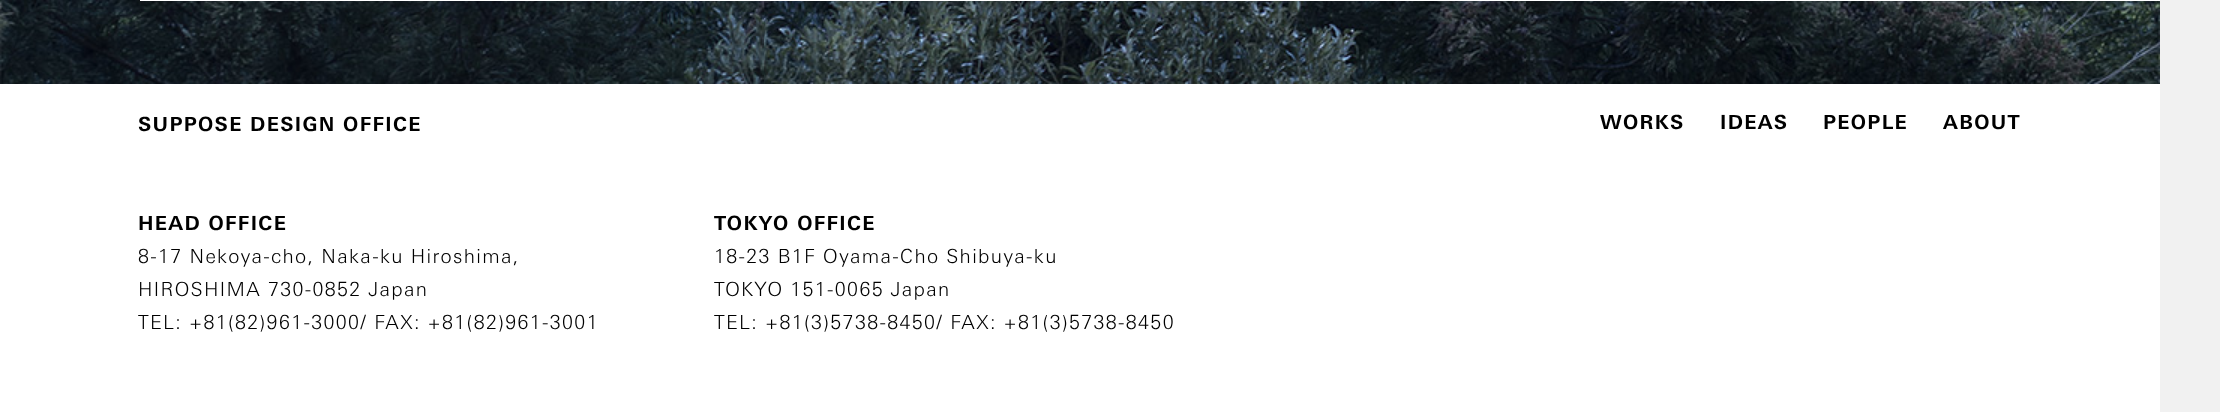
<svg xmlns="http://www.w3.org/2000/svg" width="2220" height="412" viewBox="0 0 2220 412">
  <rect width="100%" height="100%" fill="#f1f1f1"/>
  <image x="0" y="0" width="2160" height="84" href="img1.png"/>
  <rect x="140" y="0" width="2020" height="1" fill="#ffffff"/>
  <rect x="0" y="84" width="2160" height="328" fill="#ffffff"/>
  <text x="138" y="131" font-family="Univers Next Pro" font-size="19.5" font-weight="bold" letter-spacing="1.35" fill="#000000">SUPPOSE DESIGN OFFICE</text>
  <text x="1600" y="129" font-family="Univers Next Pro" font-size="19.5" font-weight="bold" letter-spacing="1.35" fill="#000000">WORKS</text>
  <text x="1720" y="129" font-family="Univers Next Pro" font-size="19.5" font-weight="bold" letter-spacing="1.35" fill="#000000">IDEAS</text>
  <text x="1823" y="129" font-family="Univers Next Pro" font-size="19.5" font-weight="bold" letter-spacing="1.35" fill="#000000">PEOPLE</text>
  <text x="1943" y="129" font-family="Univers Next Pro" font-size="19.5" font-weight="bold" letter-spacing="1.35" fill="#000000">ABOUT</text>
  <text x="138" y="230" font-family="Univers Next Pro" font-size="19.5" font-weight="bold" letter-spacing="1.35" fill="#000000">HEAD OFFICE</text>
  <text x="714" y="230" font-family="Univers Next Pro" font-size="19.5" font-weight="bold" letter-spacing="1.35" fill="#000000">TOKYO OFFICE</text>
  <text x="138" y="263" font-family="Univers Next Pro" font-size="19.5" font-weight="300" letter-spacing="1.35" fill="#000000">8-17 Nekoya-cho, Naka-ku Hiroshima,</text>
  <text x="138" y="296" font-family="Univers Next Pro" font-size="19.5" font-weight="300" letter-spacing="1.35" fill="#000000">HIROSHIMA 730-0852 Japan</text>
  <text x="138" y="329" font-family="Univers Next Pro" font-size="19.5" font-weight="300" letter-spacing="1.35" fill="#000000">TEL: +81(82)961-3000/ FAX: +81(82)961-3001</text>
  <text x="714" y="263" font-family="Univers Next Pro" font-size="19.5" font-weight="300" letter-spacing="1.35" fill="#000000">18-23 B1F Oyama-Cho Shibuya-ku</text>
  <text x="714" y="296" font-family="Univers Next Pro" font-size="19.5" font-weight="300" letter-spacing="1.35" fill="#000000">TOKYO 151-0065 Japan</text>
  <text x="714" y="329" font-family="Univers Next Pro" font-size="19.5" font-weight="300" letter-spacing="1.35" fill="#000000">TEL: +81(3)5738-8450/ FAX: +81(3)5738-8450</text>
</svg>
